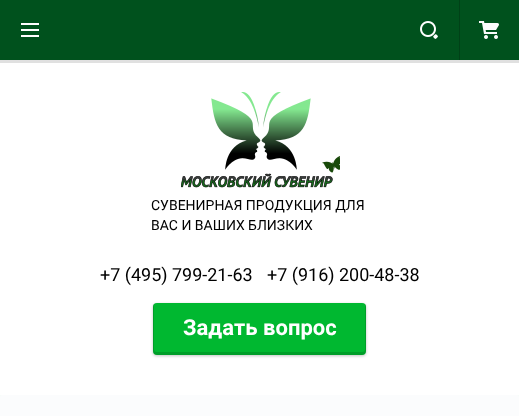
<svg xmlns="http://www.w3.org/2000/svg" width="519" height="416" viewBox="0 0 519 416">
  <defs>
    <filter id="blur1" x="-50%" y="-200%" width="200%" height="500%"><feGaussianBlur stdDeviation="1.5"/></filter>
  </defs>
  <rect width="100%" height="100%" fill="#f4fef7"/>
  <rect x="0" y="63" width="519" height="332" fill="#ffffff"/>
  <rect x="0" y="60" width="519" height="3" fill="#e0e0e0"/>
  <rect x="0" y="0" width="519" height="60" fill="#00511d"/>
  <image x="21" y="23" width="18" height="14" href="img1.png"/>
  <image x="420" y="21" width="18" height="18" href="img2.png"/>
  <rect x="459" y="0" width="1" height="60" fill="#004117"/>
  <image x="479" y="21" width="20" height="18" href="img3.png"/>
  <image x="181" y="92" width="159" height="96" href="img4.png"/>
  <text x="151" y="210" font-family="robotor" font-size="14" fill="#000000">СУВЕНИРНАЯ ПРОДУКЦИЯ ДЛЯ</text>
  <text x="151" y="230" font-family="robotor" font-size="14" fill="#000000">ВАС И ВАШИХ БЛИЗКИХ</text>
  <text x="100" y="281" font-family="robotor" font-size="18" fill="#000000">+7 (495) 799-21-63</text>
  <text x="267" y="281" font-family="robotor" font-size="18" fill="#000000">+7 (916) 200-48-38</text>
  <rect x="153" y="304" width="213" height="52" rx="4" fill="#000000" fill-opacity="0.24" filter="url(#blur1)"/>
  <rect x="153" y="303" width="213" height="52" rx="4" fill="#00b830"/>
  <path d="M154 304C153 305 153 306 153 307V351C153 353 155 355 157 355H362C364 355 366 353 366 351V307C366 306 366 305 365 304V349C365 351 364 352 362 352H157C155 352 154 351 154 349Z" fill="#000000" fill-opacity="0.14"/>
  <text x="183" y="335" font-family="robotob" font-size="22" font-weight="bold" fill="#ffffff">Задать вопрос</text>
  <rect x="0" y="395" width="519" height="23" rx="2" fill="#fbfcfd"/>
</svg>
